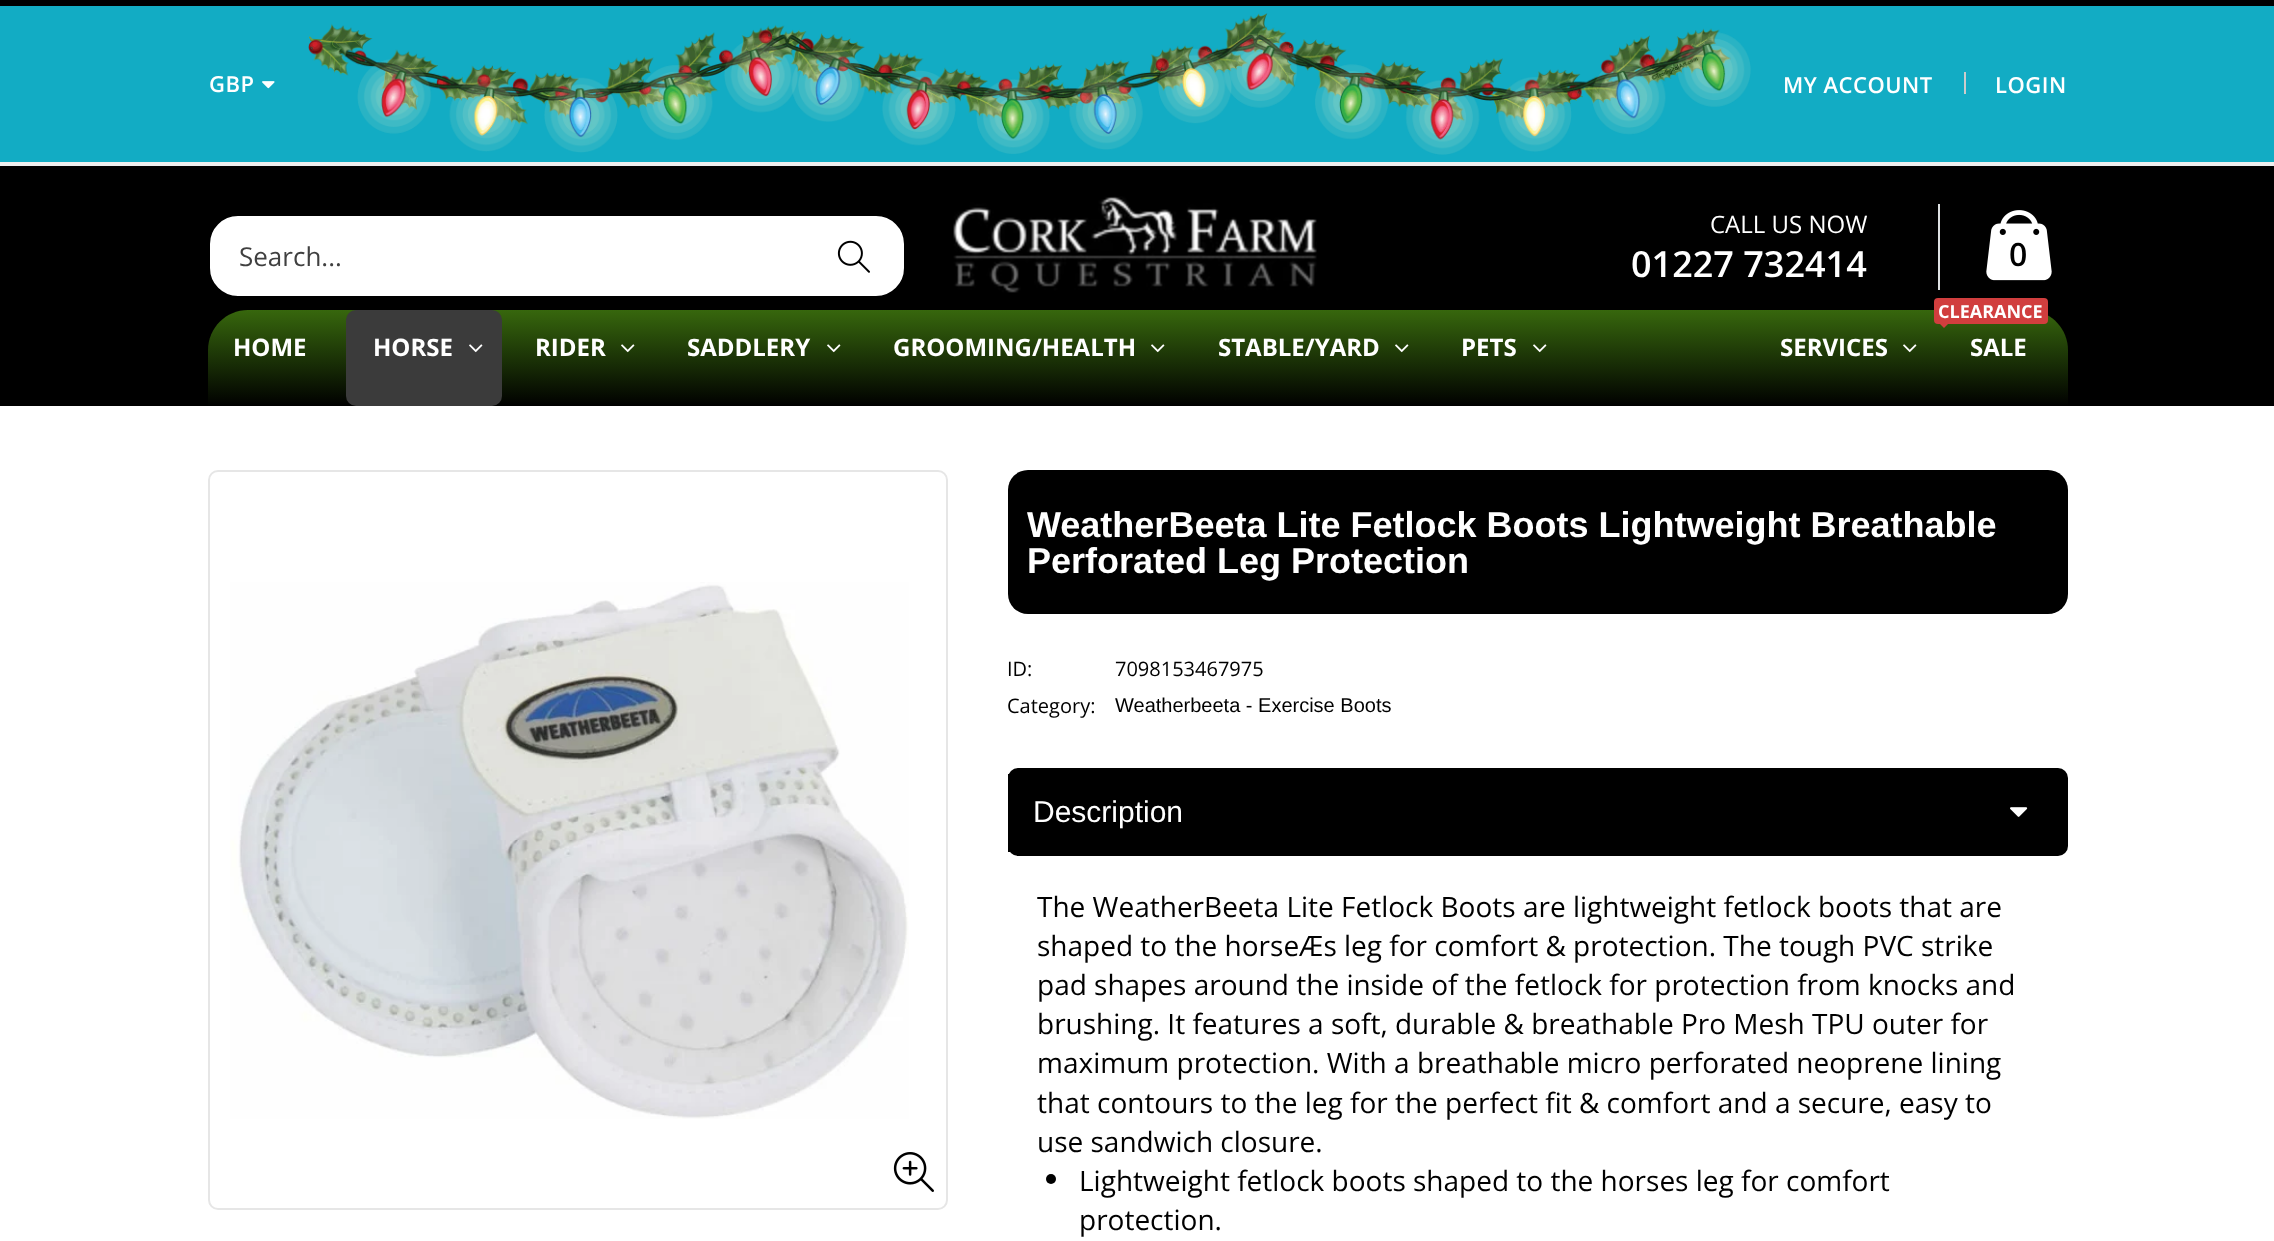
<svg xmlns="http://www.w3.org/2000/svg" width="2274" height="1241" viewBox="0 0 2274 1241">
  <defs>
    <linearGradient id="g1" gradientUnits="userSpaceOnUse" x1="1138" y1="310" x2="1138" y2="406"><stop offset="0" stop-color="#37670d"/><stop offset="1" stop-color="#000000"/></linearGradient>
  </defs>
  <rect width="100%" height="100%" fill="#ffffff"/>
  <rect x="0" y="0" width="2274" height="406" fill="#000000"/>
  <rect x="0" y="6" width="2274" height="156" fill="#12acc4"/>
  <rect x="0" y="162" width="2274" height="4" fill="#eeeeee"/>
  <text x="209" y="92" font-family="Open Sans" font-size="22" font-weight="600" letter-spacing="0.5" fill="#ffffff">GBP</text>
  <image x="262" y="81" width="13" height="8" href="img1.png"/>
  <image x="308" y="13" width="1443" height="142" href="img2.png"/>
  <text x="1783" y="93" font-family="Open Sans" font-size="22" font-weight="600" letter-spacing="0.5" fill="#ffffff">MY ACCOUNT</text>
  <rect x="1964" y="72" width="2" height="22" fill="#cccccc"/>
  <text x="1995" y="93" font-family="Open Sans" font-size="22" font-weight="600" letter-spacing="0.5" fill="#ffffff">LOGIN</text>
  <rect x="209" y="215" width="696" height="82" rx="29" fill="#ffffff" stroke="#000000" stroke-width="2"/>
  <text x="239" y="266" font-family="Open Sans" font-size="26" fill="#404040">Search...</text>
  <image x="837" y="240" width="33" height="33" href="img3.png"/>
  <image x="953" y="196" width="364" height="97" href="img4.png"/>
  <rect x="1938" y="204" width="2" height="86" fill="#dde0e2"/>
  <text x="1710" y="233" font-family="Open Sans" font-size="24" fill="#ffffff">CALL US NOW</text>
  <text x="1631" y="277" font-family="Open Sans" font-size="36" font-weight="600" fill="#ffffff">01227 732414</text>
  <image x="1986" y="210" width="66" height="71" href="img5.png"/>
  <text x="2009" y="266" font-family="Open Sans" font-size="32" font-weight="600" fill="#000000">0</text>
  <path d="M248 310H2028C2050 310 2068 328 2068 350V406H208V350C208 328 226 310 248 310Z" fill="url(#g1)"/>
  <text x="233" y="356" font-family="Open Sans" font-size="24" font-weight="bold" fill="#ffffff">HOME</text>
  <rect x="346" y="310" width="156" height="96" rx="10" fill="#3b3b3b"/>
  <text x="373" y="356" font-family="Open Sans" font-size="24" font-weight="bold" fill="#ffffff">HORSE</text>
  <image x="469" y="344" width="14" height="9" href="img6.png"/>
  <text x="535" y="356" font-family="Open Sans" font-size="24" font-weight="bold" fill="#ffffff">RIDER</text>
  <image x="621" y="344" width="14" height="9" href="img7.png"/>
  <text x="687" y="356" font-family="Open Sans" font-size="24" font-weight="bold" fill="#ffffff">SADDLERY</text>
  <image x="827" y="344" width="14" height="9" href="img7.png"/>
  <text x="893" y="356" font-family="Open Sans" font-size="24" font-weight="bold" fill="#ffffff">GROOMING/HEALTH</text>
  <image x="1151" y="344" width="14" height="9" href="img7.png"/>
  <text x="1218" y="356" font-family="Open Sans" font-size="24" font-weight="bold" fill="#ffffff">STABLE/YARD</text>
  <image x="1395" y="344" width="14" height="9" href="img7.png"/>
  <text x="1461" y="356" font-family="Open Sans" font-size="24" font-weight="bold" fill="#ffffff">PETS</text>
  <image x="1533" y="344" width="14" height="9" href="img7.png"/>
  <text x="1780" y="356" font-family="Open Sans" font-size="24" font-weight="bold" fill="#ffffff">SERVICES</text>
  <image x="1903" y="344" width="14" height="9" href="img7.png"/>
  <rect x="1934" y="298" width="114" height="26" rx="4" fill="#d13e3e"/>
  <text x="1938" y="318" font-family="Open Sans" font-size="18" font-weight="bold" fill="#ffffff">CLEARANCE</text>
  <path d="M1940 324H1948L1944 328Z" fill="#d13e3e"/>
  <text x="1970" y="356" font-family="Open Sans" font-size="24" font-weight="bold" fill="#ffffff">SALE</text>
  <rect x="209" y="471" width="738" height="738" rx="9" fill="none" stroke="#e6e6e6" stroke-width="2"/>
  <image x="230" y="582" width="679" height="537" href="img8.png"/>
  <image x="893" y="1152" width="41" height="40" href="img9.png"/>
  <rect x="1008" y="470" width="1060" height="144" rx="20" fill="#000000"/>
  <text x="1027" y="537" font-family="Liberation Sans" font-size="36" font-weight="bold" fill="#ffffff">WeatherBeeta Lite Fetlock Boots Lightweight Breathable</text>
  <text x="1027" y="573" font-family="Liberation Sans" font-size="36" font-weight="bold" fill="#ffffff">Perforated Leg Protection</text>
  <text x="1007" y="676" font-family="Open Sans" font-size="20" fill="#000000">ID:</text>
  <text x="1115" y="676" font-family="Open Sans" font-size="20" fill="#000000">7098153467975</text>
  <text x="1007" y="713" font-family="Open Sans" font-size="20" fill="#000000">Category:</text>
  <text x="1115" y="712" font-family="Liberation Sans" font-size="20" fill="#000000">Weatherbeeta - Exercise Boots</text>
  <rect x="1008" y="768" width="1060" height="88" rx="10" fill="#000000"/>
  <rect x="1008" y="774" width="2" height="78" fill="#000000"/>
  <text x="1033" y="822" font-family="Liberation Sans" font-size="30" fill="#ffffff">Description</text>
  <image x="2010" y="807" width="18" height="10" href="img10.png"/>
  <text x="1037" y="917" font-family="Open Sans" font-size="28" fill="#000000">The WeatherBeeta Lite Fetlock Boots are lightweight fetlock boots that are</text>
  <text x="1037" y="956" font-family="Open Sans" font-size="28" fill="#000000">shaped to the horseÆs leg for comfort &amp; protection. The tough PVC strike</text>
  <text x="1037" y="995" font-family="Open Sans" font-size="28" fill="#000000">pad shapes around the inside of the fetlock for protection from knocks and</text>
  <text x="1037" y="1034" font-family="Open Sans" font-size="28" fill="#000000">brushing. It features a soft, durable &amp; breathable Pro Mesh TPU outer for</text>
  <text x="1037" y="1073" font-family="Open Sans" font-size="28" fill="#000000">maximum protection. With a breathable micro perforated neoprene lining</text>
  <text x="1037" y="1113" font-family="Open Sans" font-size="28" fill="#000000">that contours to the leg for the perfect fit &amp; comfort and a secure, easy to</text>
  <text x="1037" y="1152" font-family="Open Sans" font-size="28" fill="#000000">use sandwich closure.</text>
  <circle cx="1051" cy="1179" r="5" fill="#000000"/>
  <text x="1079" y="1191" font-family="Open Sans" font-size="28" fill="#000000">Lightweight fetlock boots shaped to the horses leg for comfort</text>
  <text x="1079" y="1230" font-family="Open Sans" font-size="28" fill="#000000">protection.</text>
</svg>
